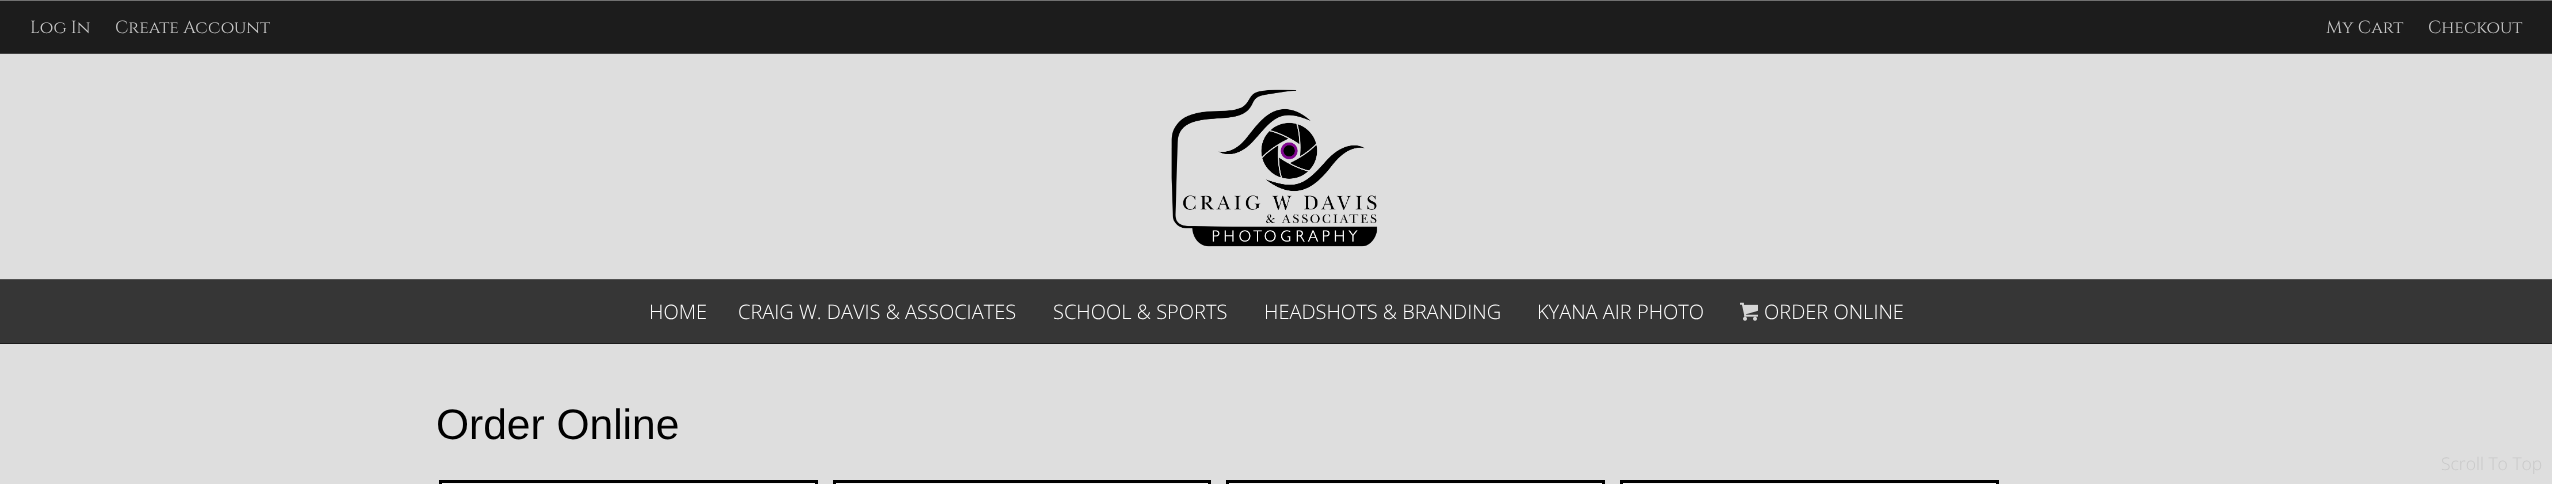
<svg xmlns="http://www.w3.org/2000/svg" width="2552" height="484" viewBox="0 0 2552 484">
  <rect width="100%" height="100%" fill="#dedede"/>
  <rect x="0" y="1" width="2552" height="52" fill="#1c1c1c"/>
  <rect x="0" y="0" width="2552" height="1" fill="#707070"/>
  <rect x="0" y="53" width="2552" height="1" fill="#424242"/>
  <text x="30" y="33" font-family="Cinzel" font-size="17.5" fill="#c9c9c9">Log In</text>
  <text x="115" y="33" font-family="Cinzel" font-size="17.5" fill="#c9c9c9">Create Account</text>
  <text x="2326" y="33" font-family="Cinzel" font-size="17.5" fill="#c9c9c9">My Cart</text>
  <text x="2428" y="33" font-family="Cinzel" font-size="17.5" fill="#c9c9c9">Checkout</text>
  <image x="1171" y="89" width="207" height="158" href="img1.png"/>
  <rect x="0" y="280" width="2552" height="63" fill="#363636"/>
  <rect x="0" y="279" width="2552" height="1" fill="#525252"/>
  <rect x="0" y="343" width="2552" height="1" fill="#1c1c1c"/>
  <text x="649" y="319" font-family="Open Sans" font-size="20" font-weight="300" fill="#ffffff">HOME</text>
  <text x="738" y="319" font-family="Open Sans" font-size="20" font-weight="300" fill="#ffffff">CRAIG W. DAVIS &amp; ASSOCIATES</text>
  <text x="1053" y="319" font-family="Open Sans" font-size="20" font-weight="300" fill="#ffffff">SCHOOL &amp; SPORTS</text>
  <text x="1264" y="319" font-family="Open Sans" font-size="20" font-weight="300" fill="#ffffff">HEADSHOTS &amp; BRANDING</text>
  <text x="1537" y="319" font-family="Open Sans" font-size="20" font-weight="300" fill="#ffffff">KYANA AIR PHOTO</text>
  <image x="1740" y="302" width="18" height="19" href="img2.png"/>
  <text x="1764" y="319" font-family="Open Sans" font-size="20" font-weight="300" fill="#ffffff">ORDER ONLINE</text>
  <text x="436" y="439" font-family="Liberation Sans" font-size="42.5" fill="#000000">Order Online</text>
  <rect x="440.5" y="481.5" width="376" height="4" fill="#f2f2f2" stroke="#000000" stroke-width="3"/>
  <rect x="834.5" y="481.5" width="375" height="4" fill="#f2f2f2" stroke="#000000" stroke-width="3"/>
  <rect x="1227.5" y="481.5" width="376" height="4" fill="#f2f2f2" stroke="#000000" stroke-width="3"/>
  <rect x="1621.5" y="481.5" width="376" height="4" fill="#f2f2f2" stroke="#000000" stroke-width="3"/>
  <text x="2441" y="470" font-family="Open Sans" font-size="17.5" font-weight="300" fill="#c9c9c9">Scroll To Top</text>
</svg>
